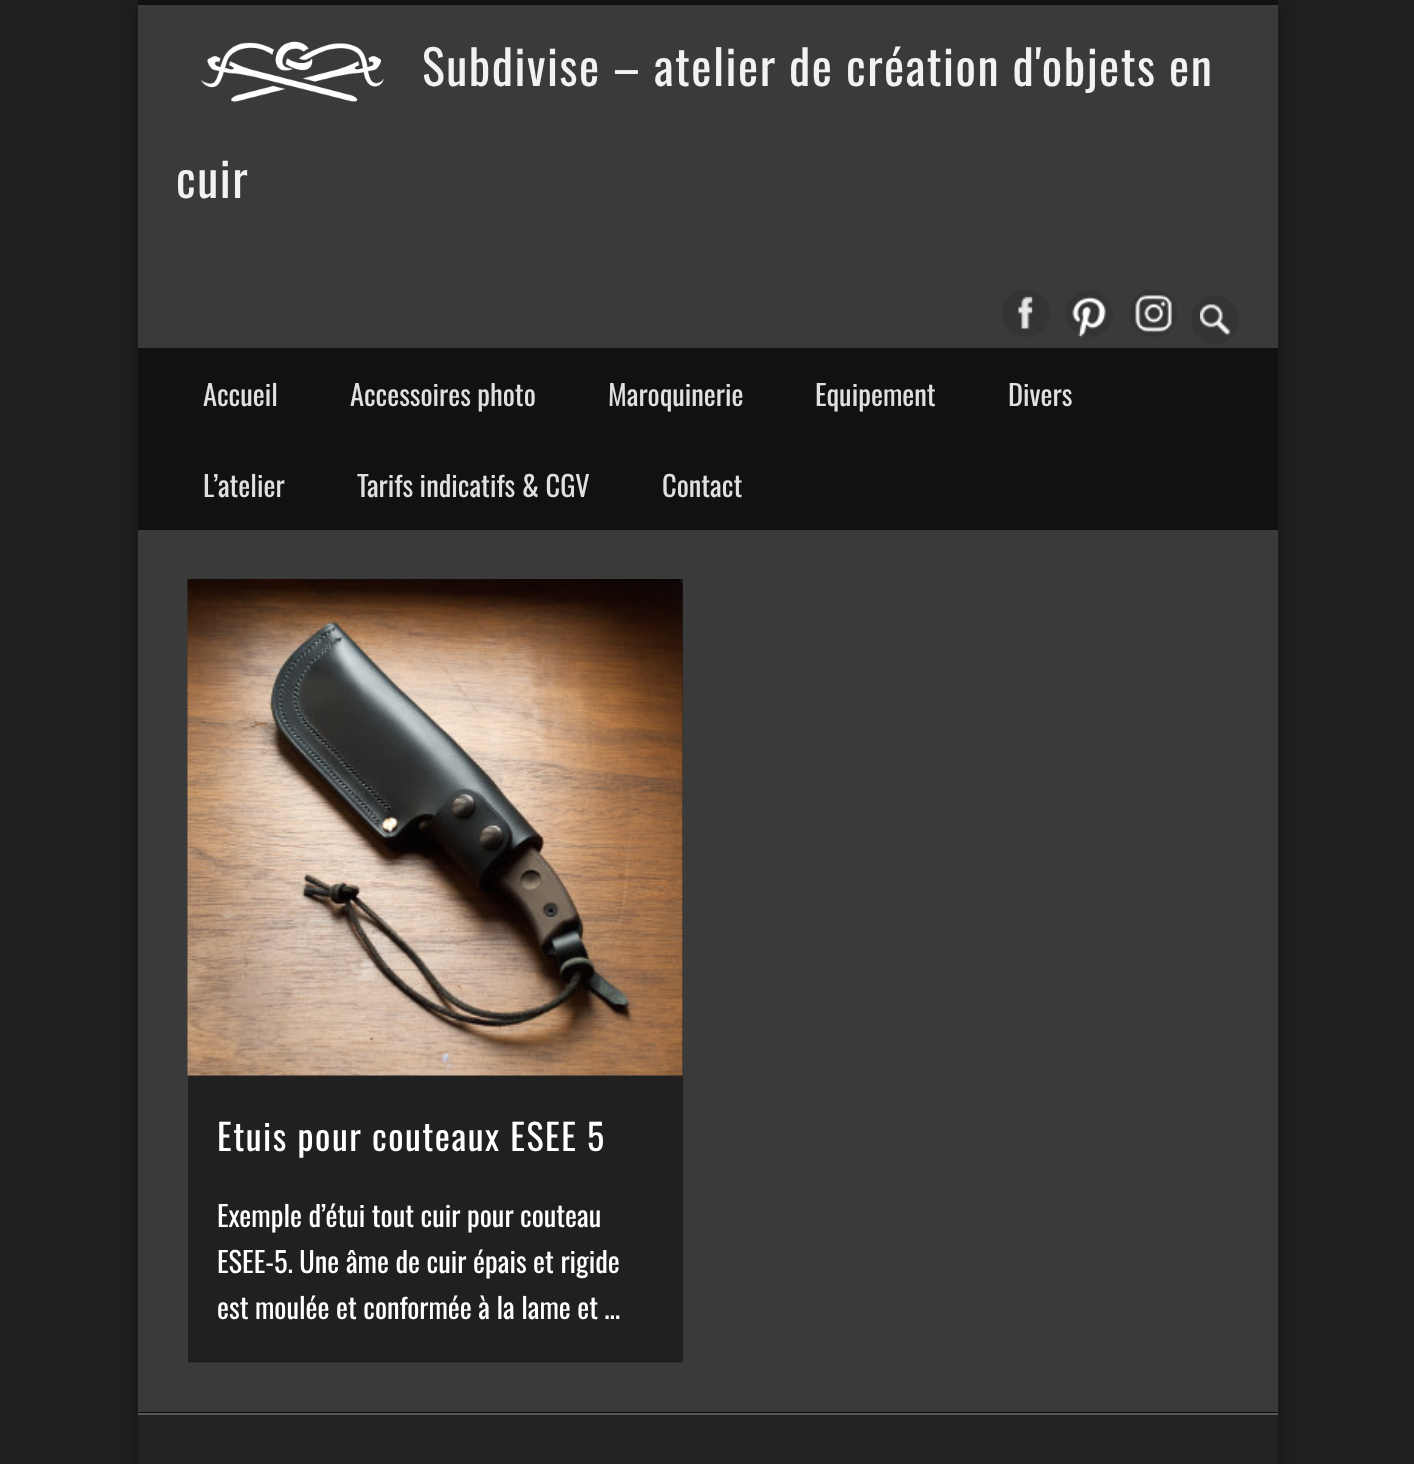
<svg xmlns="http://www.w3.org/2000/svg" width="1414" height="1464" viewBox="0 0 1414 1464">
  <defs>
    <filter id="blur1" x="-50%" y="-200%" width="200%" height="500%"><feGaussianBlur stdDeviation="13.5"/></filter>
  </defs>
  <rect width="100%" height="100%" fill="#202020"/>
  <rect x="138" y="0" width="1140" height="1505" fill="#000000" fill-opacity="0.4" filter="url(#blur1)"/>
  <rect x="138" y="5" width="1140" height="1407" fill="#3a3a3a"/>
  <rect x="138" y="0" width="1140" height="5" fill="#111111"/>
  <image x="201" y="41" width="183" height="61" href="img1.png"/>
  <text x="422" y="86" font-family="Oswald" font-size="48" letter-spacing="1.5" fill="#f2f2f2">Subdivise – atelier de création d'objets en</text>
  <text x="176" y="198" font-family="Oswald" font-size="48" letter-spacing="1.5" fill="#f2f2f2">cuir</text>
  <image x="1002" y="290" width="48" height="47" href="img2.png"/>
  <image x="1065" y="290" width="48" height="48" href="img3.png"/>
  <image x="1130" y="290" width="47" height="47" href="img4.png"/>
  <circle cx="1215" cy="320" r="24" fill="#343434"/>
  <image x="1200" y="304" width="31" height="31" href="img5.png"/>
  <rect x="138" y="348" width="1140" height="182" fill="#111111"/>
  <text x="203" y="406" font-family="Oswald" font-size="28.5" fill="#e0e0e0">Accueil</text>
  <text x="350" y="406" font-family="Oswald" font-size="28.5" fill="#e0e0e0">Accessoires photo</text>
  <text x="608" y="406" font-family="Oswald" font-size="28.5" fill="#e0e0e0">Maroquinerie</text>
  <text x="815" y="406" font-family="Oswald" font-size="28.5" fill="#e0e0e0">Equipement</text>
  <text x="1008" y="406" font-family="Oswald" font-size="28.5" fill="#e0e0e0">Divers</text>
  <text x="203" y="497" font-family="Oswald" font-size="28.5" fill="#e0e0e0">L’atelier</text>
  <text x="357" y="497" font-family="Oswald" font-size="28.5" fill="#e0e0e0">Tarifs indicatifs &amp; CGV</text>
  <text x="662" y="497" font-family="Oswald" font-size="28.5" fill="#e0e0e0">Contact</text>
  <rect x="188" y="579" width="495" height="783" fill="#202020"/>
  <rect x="188" y="1361" width="495" height="2" fill="#000000" fill-opacity="0.13"/>
  <image x="187" y="579" width="496" height="497" href="img6.png"/>
  <text x="217" y="1151" font-family="Oswald" font-size="36" letter-spacing="1.5" fill="#ffffff">Etuis pour couteaux ESEE 5</text>
  <text x="217" y="1227" font-family="Oswald" font-size="28.5" fill="#ffffff">Exemple d’étui tout cuir pour couteau</text>
  <text x="217" y="1273" font-family="Oswald" font-size="28.5" fill="#ffffff">ESEE-5. Une âme de cuir épais et rigide</text>
  <text x="217" y="1319" font-family="Oswald" font-size="28.5" fill="#ffffff">est moulée et conformée à la lame et …</text>
  <rect x="138" y="1412" width="1140" height="1" fill="#0c0c0c"/>
  <rect x="138" y="1415" width="1140" height="49" fill="#222222"/>
  <rect x="138" y="1413" width="1140" height="2" fill="#565656"/>
</svg>
